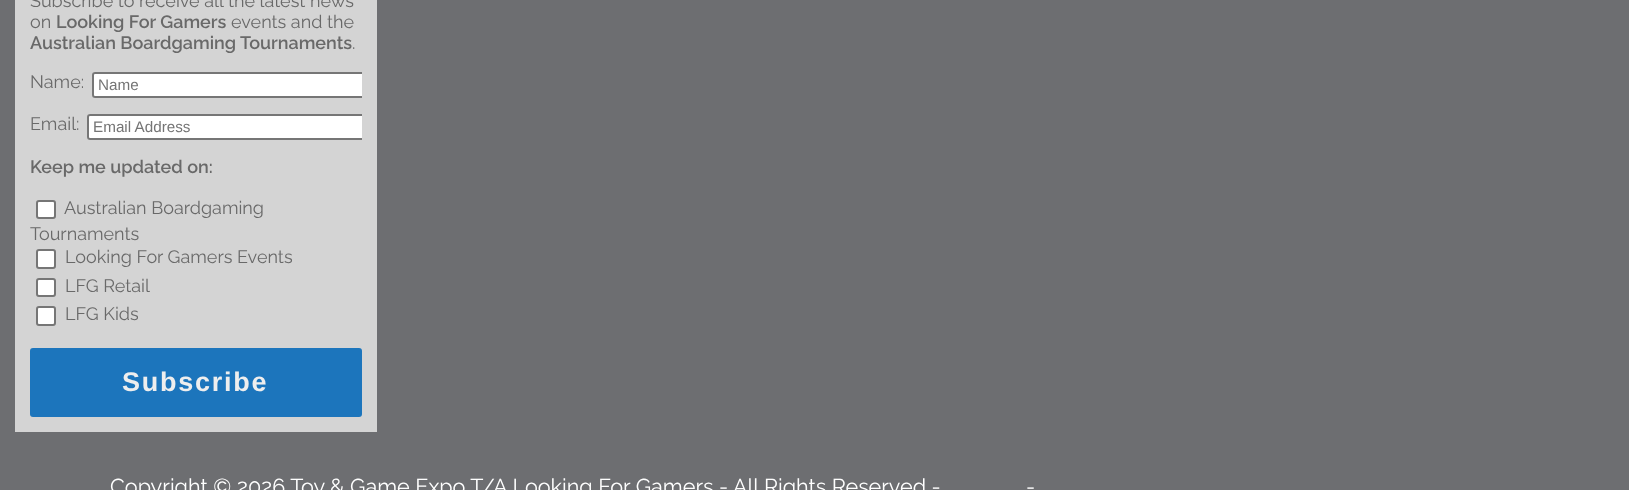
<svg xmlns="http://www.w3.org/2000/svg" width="1629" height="490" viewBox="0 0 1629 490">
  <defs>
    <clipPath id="clip1"><rect x="84" y="72" width="278" height="26"/></clipPath>
    <clipPath id="clip2"><rect x="80" y="114" width="282" height="26"/></clipPath>
  </defs>
  <rect width="100%" height="100%" fill="#6d6e71"/>
  <rect x="15" y="0" width="362" height="432" fill="#d4d4d4"/>
  <text x="30" y="7" font-family="Raleway" font-size="18" fill="#696969">Subscribe to receive all the latest news</text>
  <text x="30" y="28" font-family="Raleway" font-size="18" fill="#696969">on</text>
  <text x="56" y="28" font-family="Raleway" font-size="18" font-weight="600" fill="#696969">Looking For Gamers</text>
  <text x="231" y="28" font-family="Raleway" font-size="18" fill="#696969">events and the</text>
  <text x="30" y="49" font-family="Raleway" font-size="18" font-weight="600" fill="#696969">Australian Boardgaming Tournaments</text>
  <text x="352" y="49" font-family="Raleway" font-size="18" fill="#696969">.</text>
  <text x="30" y="88" font-family="Raleway" font-size="18" fill="#696969">Name:</text>
  <path d="M95 72H362V98H95C93.5 98 92 96.5 92 95V75C92 73.5 93.5 72 95 72Z" fill="#ffffff"/>
  <g clip-path="url(#clip1)">
    <rect x="93" y="73" width="272" height="24" rx="2" fill="none" stroke="#767676" stroke-width="2"/>
  </g>
  <text x="98" y="90" font-family="Liberation Sans" font-size="15.25" fill="#757575">Name</text>
  <text x="30" y="130" font-family="Raleway" font-size="18" fill="#696969">Email:</text>
  <path d="M90 114H362V140H90C88.5 140 87 138.5 87 137V117C87 115.5 88.5 114 90 114Z" fill="#ffffff"/>
  <g clip-path="url(#clip2)">
    <rect x="88" y="115" width="277" height="24" rx="2" fill="none" stroke="#767676" stroke-width="2"/>
  </g>
  <text x="93" y="132" font-family="Liberation Sans" font-size="15.25" fill="#757575">Email Address</text>
  <text x="30" y="173" font-family="Raleway" font-size="18" font-weight="600" fill="#696969">Keep me updated on:</text>
  <rect x="37" y="201" width="18" height="17" rx="2" fill="#ffffff" stroke="#767676" stroke-width="2"/>
  <text x="64" y="214" font-family="Raleway" font-size="18" fill="#696969">Australian Boardgaming</text>
  <text x="30" y="240" font-family="Raleway" font-size="18" fill="#696969">Tournaments</text>
  <rect x="37" y="250" width="18" height="18" rx="2" fill="#ffffff" stroke="#767676" stroke-width="2"/>
  <text x="65" y="263" font-family="Raleway" font-size="18" fill="#696969">Looking For Gamers Events</text>
  <rect x="37" y="279" width="18" height="17" rx="2" fill="#ffffff" stroke="#767676" stroke-width="2"/>
  <text x="65" y="292" font-family="Raleway" font-size="18" fill="#696969">LFG Retail</text>
  <rect x="37" y="307" width="18" height="18" rx="2" fill="#ffffff" stroke="#767676" stroke-width="2"/>
  <text x="65" y="320" font-family="Raleway" font-size="18" fill="#696969">LFG Kids</text>
  <rect x="30" y="348" width="332" height="69" rx="3" fill="#1c75bc"/>
  <text x="122" y="391" font-family="Liberation Sans" font-size="27" font-weight="bold" letter-spacing="1.75" fill="#eeeeee">Subscribe</text>
  <text x="110" y="494" font-family="Raleway" font-size="21.6" fill="#ffffff">Copyright © 2026 Toy &amp; Game Expo T/A Looking For Gamers - All Rights Reserved -</text>
  <text x="1026" y="494" font-family="Raleway" font-size="21.6" fill="#ffffff">-</text>
</svg>
